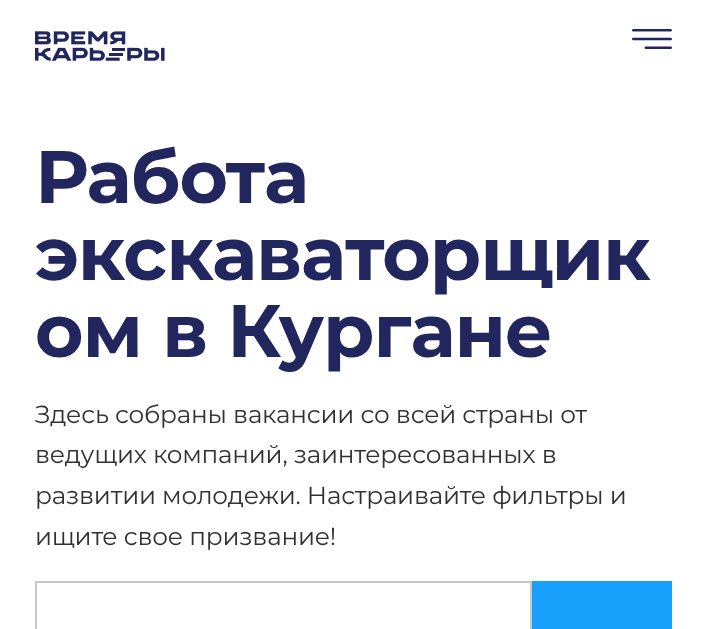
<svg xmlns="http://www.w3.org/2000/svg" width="707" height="629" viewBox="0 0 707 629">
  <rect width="100%" height="100%" fill="#ffffff"/>
  <image x="35" y="31" width="130" height="30" href="img1.png"/>
  <image x="632" y="29" width="40" height="20" href="img2.png"/>
  <text x="35" y="203" font-family="Montserrat" font-size="74.25" font-weight="bold" letter-spacing="-1" fill="#21265e">Работа</text>
  <text x="35" y="280" font-family="Montserrat" font-size="74.25" font-weight="bold" letter-spacing="-1" fill="#21265e">экскаваторщик</text>
  <text x="35" y="357" font-family="Montserrat" font-size="74.25" font-weight="bold" letter-spacing="-1" fill="#21265e">ом в Кургане</text>
  <text x="35" y="423" font-family="Montserrat" font-size="24.75" letter-spacing="-0.2" fill="#313131">Здесь собраны вакансии со всей страны от</text>
  <text x="35" y="463" font-family="Montserrat" font-size="24.75" letter-spacing="-0.2" fill="#313131">ведущих компаний, заинтересованных в</text>
  <text x="35" y="504" font-family="Montserrat" font-size="24.75" letter-spacing="-0.2" fill="#313131">развитии молодежи. Настраивайте фильтры и</text>
  <text x="35" y="545" font-family="Montserrat" font-size="24.75" letter-spacing="-0.2" fill="#313131">ищите свое призвание!</text>
  <rect x="36" y="582" width="495" height="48" fill="none" stroke="#c6c6c6" stroke-width="2"/>
  <rect x="532" y="581" width="140" height="48" fill="#18a0fb"/>
</svg>
